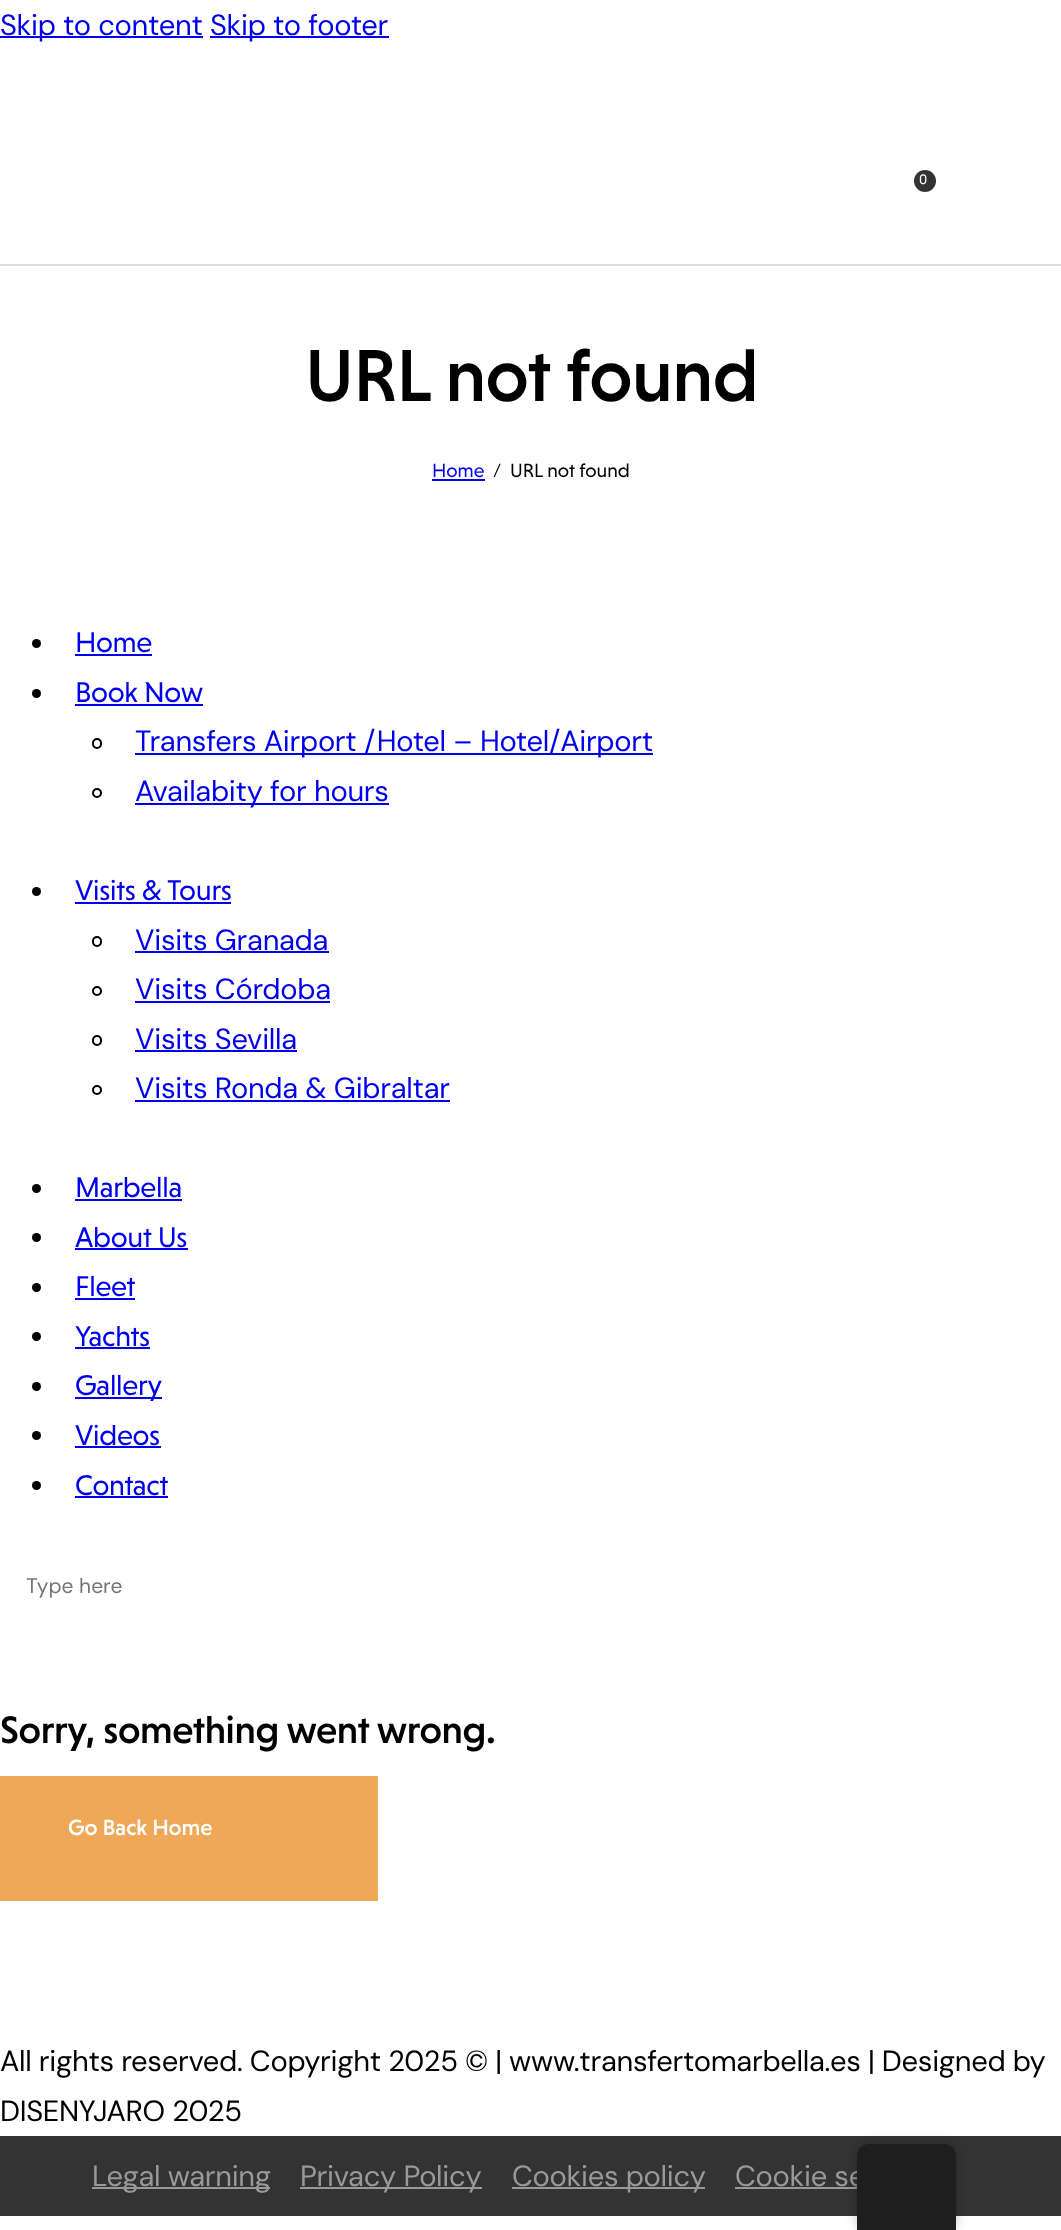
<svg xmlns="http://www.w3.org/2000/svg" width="1061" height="2230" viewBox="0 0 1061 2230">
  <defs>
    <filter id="blur1" x="-50%" y="-200%" width="200%" height="500%"><feGaussianBlur stdDeviation="6"/></filter>
  </defs>
  <rect width="100%" height="100%" fill="#ffffff"/>
  <rect x="0" y="36" width="203" height="2" fill="#0000ee"/>
  <text x="0" y="35" font-family="DM Sans" font-size="29.15" letter-spacing="-0.3" fill="#0000ee">Skip to content</text>
  <rect x="210" y="36" width="179" height="2" fill="#0000ee"/>
  <text x="210" y="35" font-family="DM Sans" font-size="29.15" letter-spacing="-0.3" fill="#0000ee">Skip to footer</text>
  <rect x="0" y="264" width="1061" height="2" fill="#dddddd"/>
  <circle cx="925" cy="181" r="11" fill="#333333"/>
  <text x="919" y="184" font-family="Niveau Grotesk" font-size="14" fill="#ffffff">0</text>
  <text x="305" y="401" font-family="Niveau Grotesk" font-size="75" font-weight="500" letter-spacing="-0.75" fill="#000000">URL not found</text>
  <text x="432" y="477" font-family="Niveau Grotesk" font-size="19.5" fill="#0000ee">Home</text>
  <rect x="432" y="479" width="53" height="2" fill="#0000ee"/>
  <text x="493" y="477" font-family="Niveau Grotesk" font-size="19.5" fill="#000000">/</text>
  <text x="510" y="477" font-family="Niveau Grotesk" font-size="19.5" fill="#000000">URL not found</text>
  <circle cx="36.5" cy="643.5" r="4.5" fill="#000000"/>
  <text x="75" y="652" font-family="Niveau Grotesk" font-size="29.15" letter-spacing="-0.3" fill="#0000ee">Home</text>
  <rect x="75" y="654" width="77" height="2" fill="#0000ee"/>
  <circle cx="36.5" cy="693.5" r="4.5" fill="#000000"/>
  <text x="75" y="702" font-family="Niveau Grotesk" font-size="29.15" letter-spacing="-0.3" fill="#0000ee">Book Now</text>
  <rect x="75" y="704" width="128" height="2" fill="#0000ee"/>
  <rect x="93" y="739" width="8" height="9" rx="4" fill="none" stroke="#000000" stroke-width="2"/>
  <rect x="135" y="753" width="518" height="2" fill="#0000ee"/>
  <text x="135" y="751" font-family="DM Sans" font-size="29.15" letter-spacing="-0.3" fill="#0000ee">Transfers Airport /Hotel – Hotel/Airport</text>
  <circle cx="97" cy="793" r="4" fill="none" stroke="#000000" stroke-width="2"/>
  <rect x="135" y="803" width="254" height="2" fill="#0000ee"/>
  <text x="135" y="801" font-family="DM Sans" font-size="29.15" letter-spacing="-0.3" fill="#0000ee">Availabity for hours</text>
  <circle cx="36.5" cy="891.5" r="4.5" fill="#000000"/>
  <text x="75" y="900" font-family="Niveau Grotesk" font-size="29.15" letter-spacing="-0.3" fill="#0000ee">Visits &amp; Tours</text>
  <rect x="75" y="902" width="156" height="2" fill="#0000ee"/>
  <rect x="93" y="937" width="8" height="9" rx="4" fill="none" stroke="#000000" stroke-width="2"/>
  <text x="135" y="950" font-family="DM Sans" font-size="29.15" letter-spacing="-0.3" fill="#0000ee">Visits Granada</text>
  <rect x="135" y="951" width="194" height="2" fill="#0000ee"/>
  <circle cx="97" cy="991" r="4" fill="none" stroke="#000000" stroke-width="2"/>
  <text x="135" y="999" font-family="DM Sans" font-size="29.15" letter-spacing="-0.3" fill="#0000ee">Visits Córdoba</text>
  <rect x="135" y="1001" width="195" height="2" fill="#0000ee"/>
  <rect x="93" y="1036" width="8" height="9" rx="4" fill="none" stroke="#000000" stroke-width="2"/>
  <text x="135" y="1049" font-family="DM Sans" font-size="29.15" letter-spacing="-0.3" fill="#0000ee">Visits Sevilla</text>
  <rect x="135" y="1050" width="162" height="2" fill="#0000ee"/>
  <circle cx="97" cy="1090" r="4" fill="none" stroke="#000000" stroke-width="2"/>
  <text x="135" y="1098" font-family="DM Sans" font-size="29.15" letter-spacing="-0.3" fill="#0000ee">Visits Ronda &amp; Gibraltar</text>
  <rect x="135" y="1100" width="315" height="2" fill="#0000ee"/>
  <circle cx="36.5" cy="1188.5" r="4.5" fill="#000000"/>
  <text x="75" y="1197" font-family="Niveau Grotesk" font-size="29.15" letter-spacing="-0.3" fill="#0000ee">Marbella</text>
  <rect x="75" y="1199" width="107" height="2" fill="#0000ee"/>
  <circle cx="36.5" cy="1237.5" r="4.5" fill="#000000"/>
  <text x="75" y="1247" font-family="Niveau Grotesk" font-size="29.15" letter-spacing="-0.3" fill="#0000ee">About Us</text>
  <rect x="75" y="1248" width="113" height="2" fill="#0000ee"/>
  <circle cx="36.5" cy="1287.5" r="4.5" fill="#000000"/>
  <text x="75" y="1296" font-family="Niveau Grotesk" font-size="29.15" letter-spacing="-0.3" fill="#0000ee">Fleet</text>
  <rect x="75" y="1298" width="60" height="2" fill="#0000ee"/>
  <circle cx="36.5" cy="1336.5" r="4.5" fill="#000000"/>
  <text x="75" y="1346" font-family="Niveau Grotesk" font-size="29.15" letter-spacing="-0.3" fill="#0000ee">Yachts</text>
  <rect x="75" y="1347" width="75" height="2" fill="#0000ee"/>
  <circle cx="36.5" cy="1386.5" r="4.5" fill="#000000"/>
  <rect x="75" y="1397" width="87" height="2" fill="#0000ee"/>
  <text x="75" y="1395" font-family="Niveau Grotesk" font-size="29.15" letter-spacing="-0.3" fill="#0000ee">Gallery</text>
  <circle cx="36.5" cy="1435.5" r="4.5" fill="#000000"/>
  <text x="75" y="1445" font-family="Niveau Grotesk" font-size="29.15" letter-spacing="-0.3" fill="#0000ee">Videos</text>
  <rect x="75" y="1446" width="86" height="2" fill="#0000ee"/>
  <circle cx="36.5" cy="1485.5" r="4.5" fill="#000000"/>
  <text x="75" y="1495" font-family="Niveau Grotesk" font-size="29.15" letter-spacing="-0.3" fill="#0000ee">Contact</text>
  <rect x="75" y="1496" width="93" height="2" fill="#0000ee"/>
  <text x="26" y="1593" font-family="DM Sans" font-size="21" fill="#757575">Type here</text>
  <text x="0" y="1743" font-family="Niveau Grotesk" font-size="39" font-weight="500" letter-spacing="-0.4" fill="#000000">Sorry, something went wrong.</text>
  <rect x="0" y="1776" width="378" height="125" fill="#efa758"/>
  <text x="68" y="1835" font-family="Niveau Grotesk" font-size="22.5" font-weight="500" fill="#ffffff">Go Back Home</text>
  <text x="0" y="2071" word-spacing="-0.1" font-family="DM Sans" font-size="29.15" letter-spacing="-0.3" fill="#000000">All rights reserved. Copyright 2025 © | www.transfertomarbella.es | Designed by</text>
  <text x="0" y="2121" font-family="DM Sans" font-size="29.15" letter-spacing="-0.3" fill="#000000">DISENYJARO 2025</text>
  <rect x="0" y="2136" width="1061" height="80" fill="#333333"/>
  <rect x="92" y="2187" width="178" height="2" fill="#999999"/>
  <text x="92" y="2186" font-family="DM Sans" font-size="29.15" letter-spacing="-0.3" fill="#999999">Legal warning</text>
  <rect x="300" y="2187" width="182" height="2" fill="#999999"/>
  <text x="300" y="2186" font-family="DM Sans" font-size="29.15" letter-spacing="-0.3" fill="#999999">Privacy Policy</text>
  <rect x="512" y="2187" width="193" height="2" fill="#999999"/>
  <text x="512" y="2186" font-family="DM Sans" font-size="29.15" letter-spacing="-0.3" fill="#999999">Cookies policy</text>
  <text x="735" y="2186" font-family="DM Sans" font-size="29.15" letter-spacing="-0.3" fill="#999999">Cookie se</text>
  <rect x="735" y="2187" width="122" height="2" fill="#999999"/>
  <rect x="857" y="2144" width="99" height="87" rx="12" fill="#000000" fill-opacity="0.25" filter="url(#blur1)"/>
  <path d="M869 2144H944C950.5 2144 956 2149.5 956 2156V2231H857V2156C857 2149.5 862.5 2144 869 2144Z" fill="#1e1e1e"/>
</svg>
